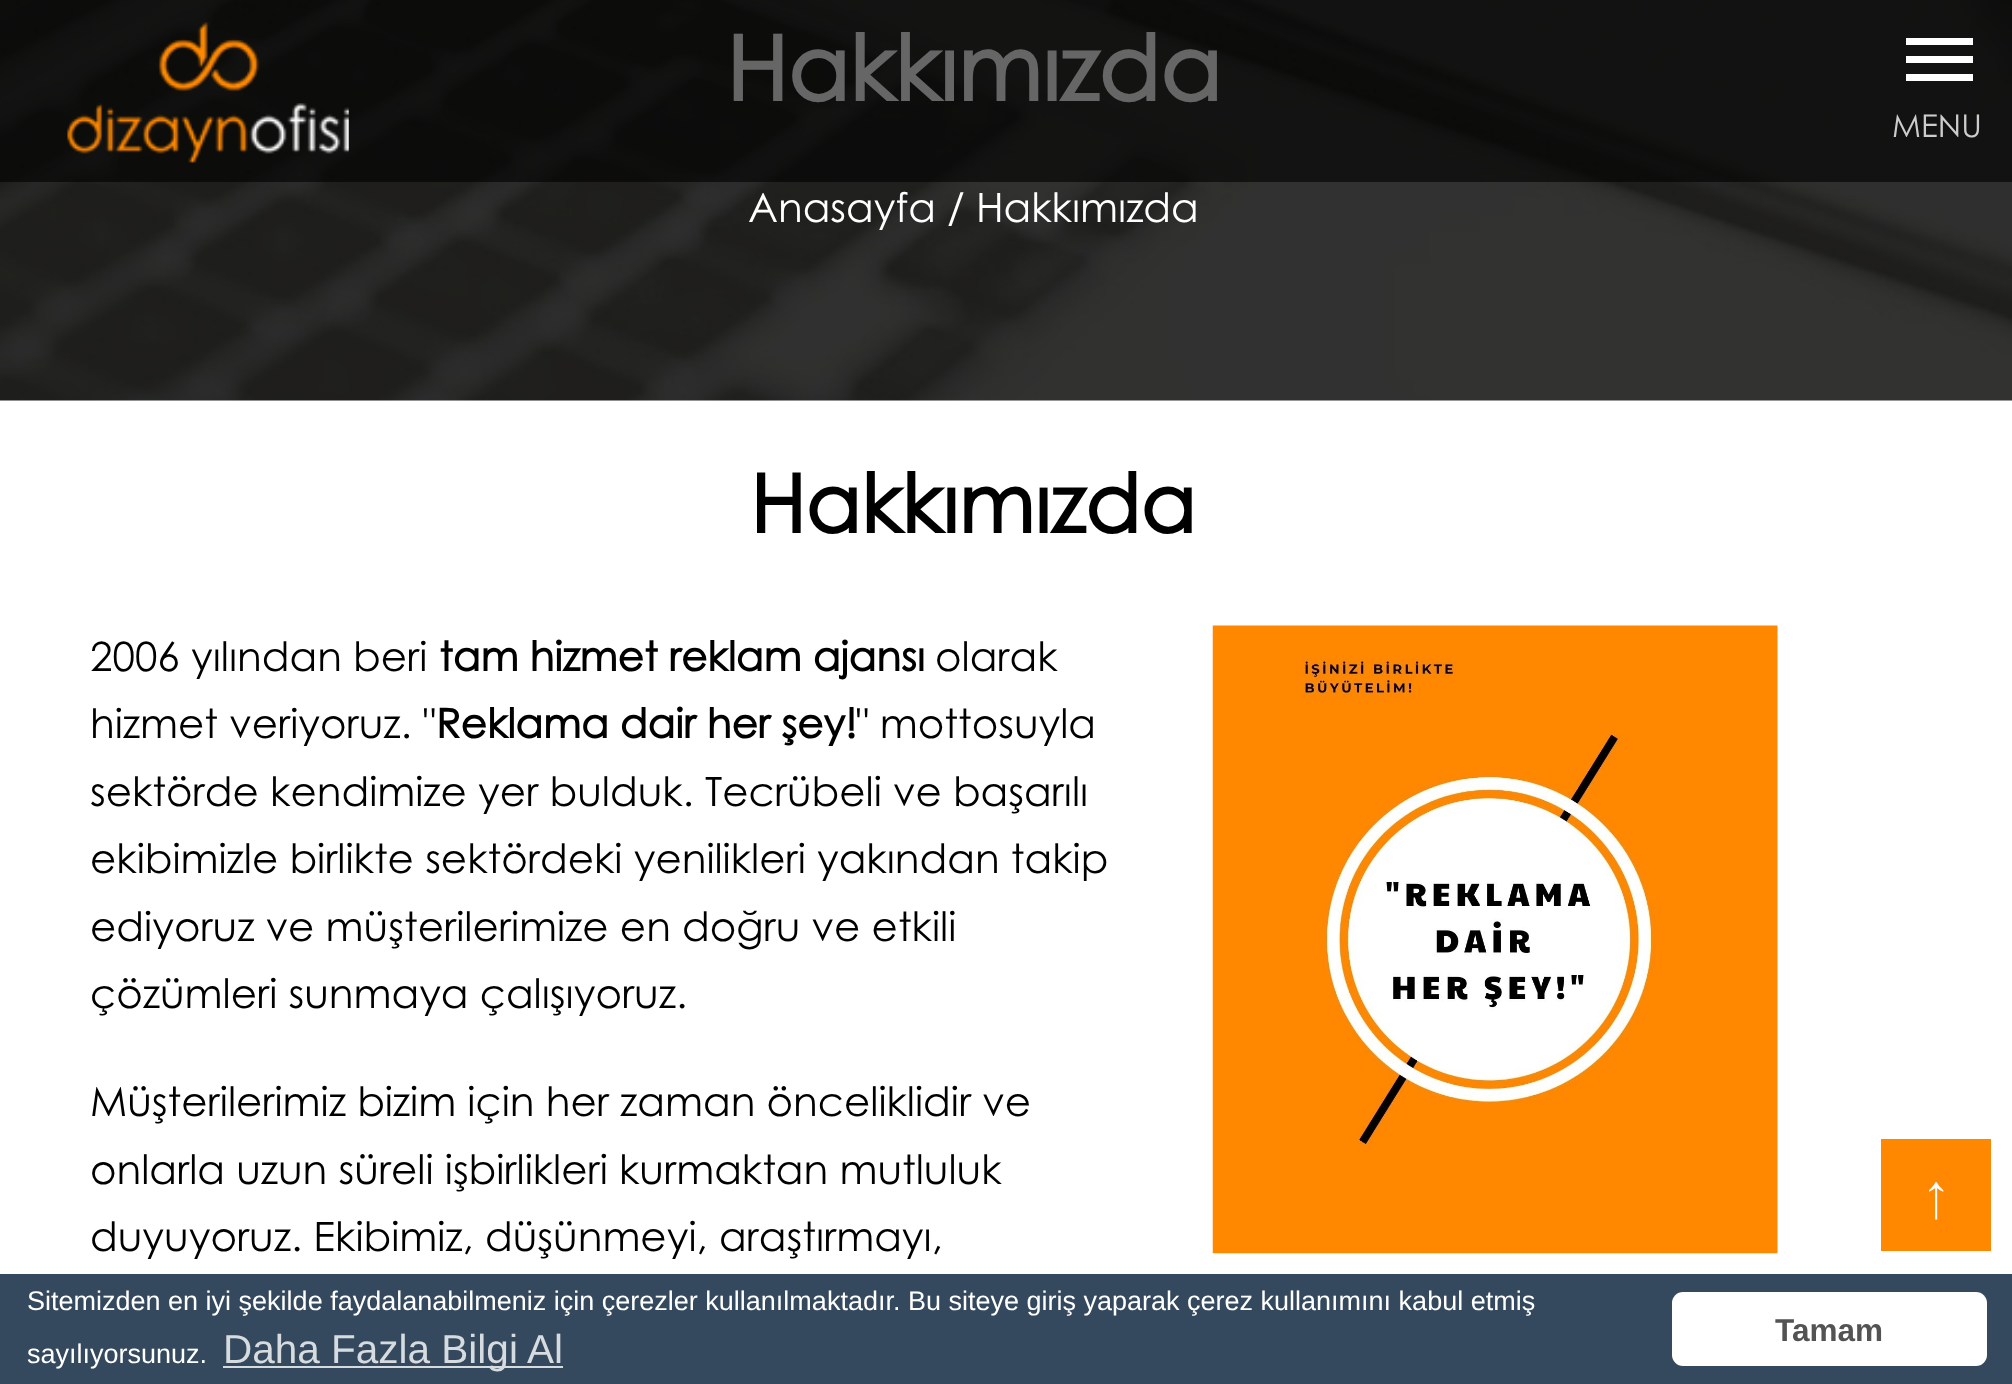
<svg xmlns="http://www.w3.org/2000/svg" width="2012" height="1384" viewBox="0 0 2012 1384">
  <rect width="100%" height="100%" fill="#ffffff"/>
  <image x="0" y="0" width="2012" height="401" href="img1.png"/>
  <text x="726" y="101" font-family="Century Gothic" font-size="90" font-weight="bold" fill="#ffffff">Hakkımızda</text>
  <text x="748" y="222" font-family="Century Gothic" font-size="40.5" fill="#ffffff">Anasayfa / Hakkımızda</text>
  <rect x="0" y="0" width="2012" height="182" fill="#000000" fill-opacity="0.6"/>
  <image x="67" y="22" width="282" height="141" href="img2.png"/>
  <rect x="1906" y="38" width="67" height="7" fill="#ffffff"/>
  <rect x="1906" y="56" width="67" height="7" fill="#ffffff"/>
  <rect x="1906" y="74" width="67" height="7" fill="#ffffff"/>
  <text x="1892" y="137" font-family="Century Gothic" font-size="31.5" fill="#cccccc">MENU</text>
  <text x="750" y="533" font-family="Century Gothic" font-size="81" font-weight="bold" fill="#000000">Hakkımızda</text>
  <text x="90" y="671" font-family="Century Gothic" font-size="40.5" fill="#000000">2006 yılından beri</text>
  <text x="439" y="671" font-family="Century Gothic" font-size="40.5" font-weight="bold" fill="#000000">tam hizmet reklam ajansı</text>
  <text x="935" y="671" font-family="Century Gothic" font-size="40.5" fill="#000000">olarak</text>
  <text x="90" y="738" font-family="Century Gothic" font-size="40.5" fill="#000000">hizmet veriyoruz. "</text>
  <text x="436" y="738" font-family="Century Gothic" font-size="40.5" font-weight="bold" fill="#000000">Reklama dair her şey!</text>
  <text x="856" y="738" font-family="Century Gothic" font-size="40.5" fill="#000000">" mottosuyla</text>
  <text x="90" y="806" font-family="Century Gothic" font-size="40.5" fill="#000000">sektörde kendimize yer bulduk. Tecrübeli ve başarılı</text>
  <text x="90" y="873" font-family="Century Gothic" font-size="40.5" fill="#000000">ekibimizle birlikte sektördeki yenilikleri yakından takip</text>
  <text x="90" y="941" font-family="Century Gothic" font-size="40.5" fill="#000000">ediyoruz ve müşterilerimize en doğru ve etkili</text>
  <text x="90" y="1008" font-family="Century Gothic" font-size="40.5" fill="#000000">çözümleri sunmaya çalışıyoruz.</text>
  <text x="90" y="1116" font-family="Century Gothic" font-size="40.5" fill="#000000">Müşterilerimiz bizim için her zaman önceliklidir ve</text>
  <text x="90" y="1184" font-family="Century Gothic" font-size="40.5" fill="#000000">onlarla uzun süreli işbirlikleri kurmaktan mutluluk</text>
  <text x="90" y="1251" font-family="Century Gothic" font-size="40.5" fill="#000000">duyuyoruz. Ekibimiz, düşünmeyi, araştırmayı,</text>
  <image x="1212" y="625" width="566" height="629" href="img3.png"/>
  <rect x="1881" y="1139" width="110" height="112" fill="#ff8800"/>
  <text x="1926" y="1211" font-family="Century Gothic" font-size="40.5" fill="#ffffff">↑</text>
  <rect x="0" y="1274" width="2012" height="110" fill="#34495e"/>
  <text x="27" y="1310" font-family="Liberation Sans" font-size="27" fill="#ffffff">Sitemizden en iyi şekilde faydalanabilmeniz için çerezler kullanılmaktadır. Bu siteye giriş yaparak çerez kullanımını kabul etmiş</text>
  <text x="27" y="1363" font-family="Liberation Sans" font-size="27" fill="#ffffff">sayılıyorsunuz.</text>
  <rect x="223" y="1366" width="340" height="2" fill="#d6dbdf"/>
  <text x="223" y="1363" font-family="Liberation Sans" font-size="40.5" fill="#d6dbdf">Daha Fazla Bilgi Al</text>
  <rect x="1672" y="1292" width="315" height="74" rx="11" fill="#ffffff"/>
  <text x="1775" y="1341" font-family="Liberation Sans" font-size="31.5" font-weight="bold" fill="#535353">Tamam</text>
</svg>
